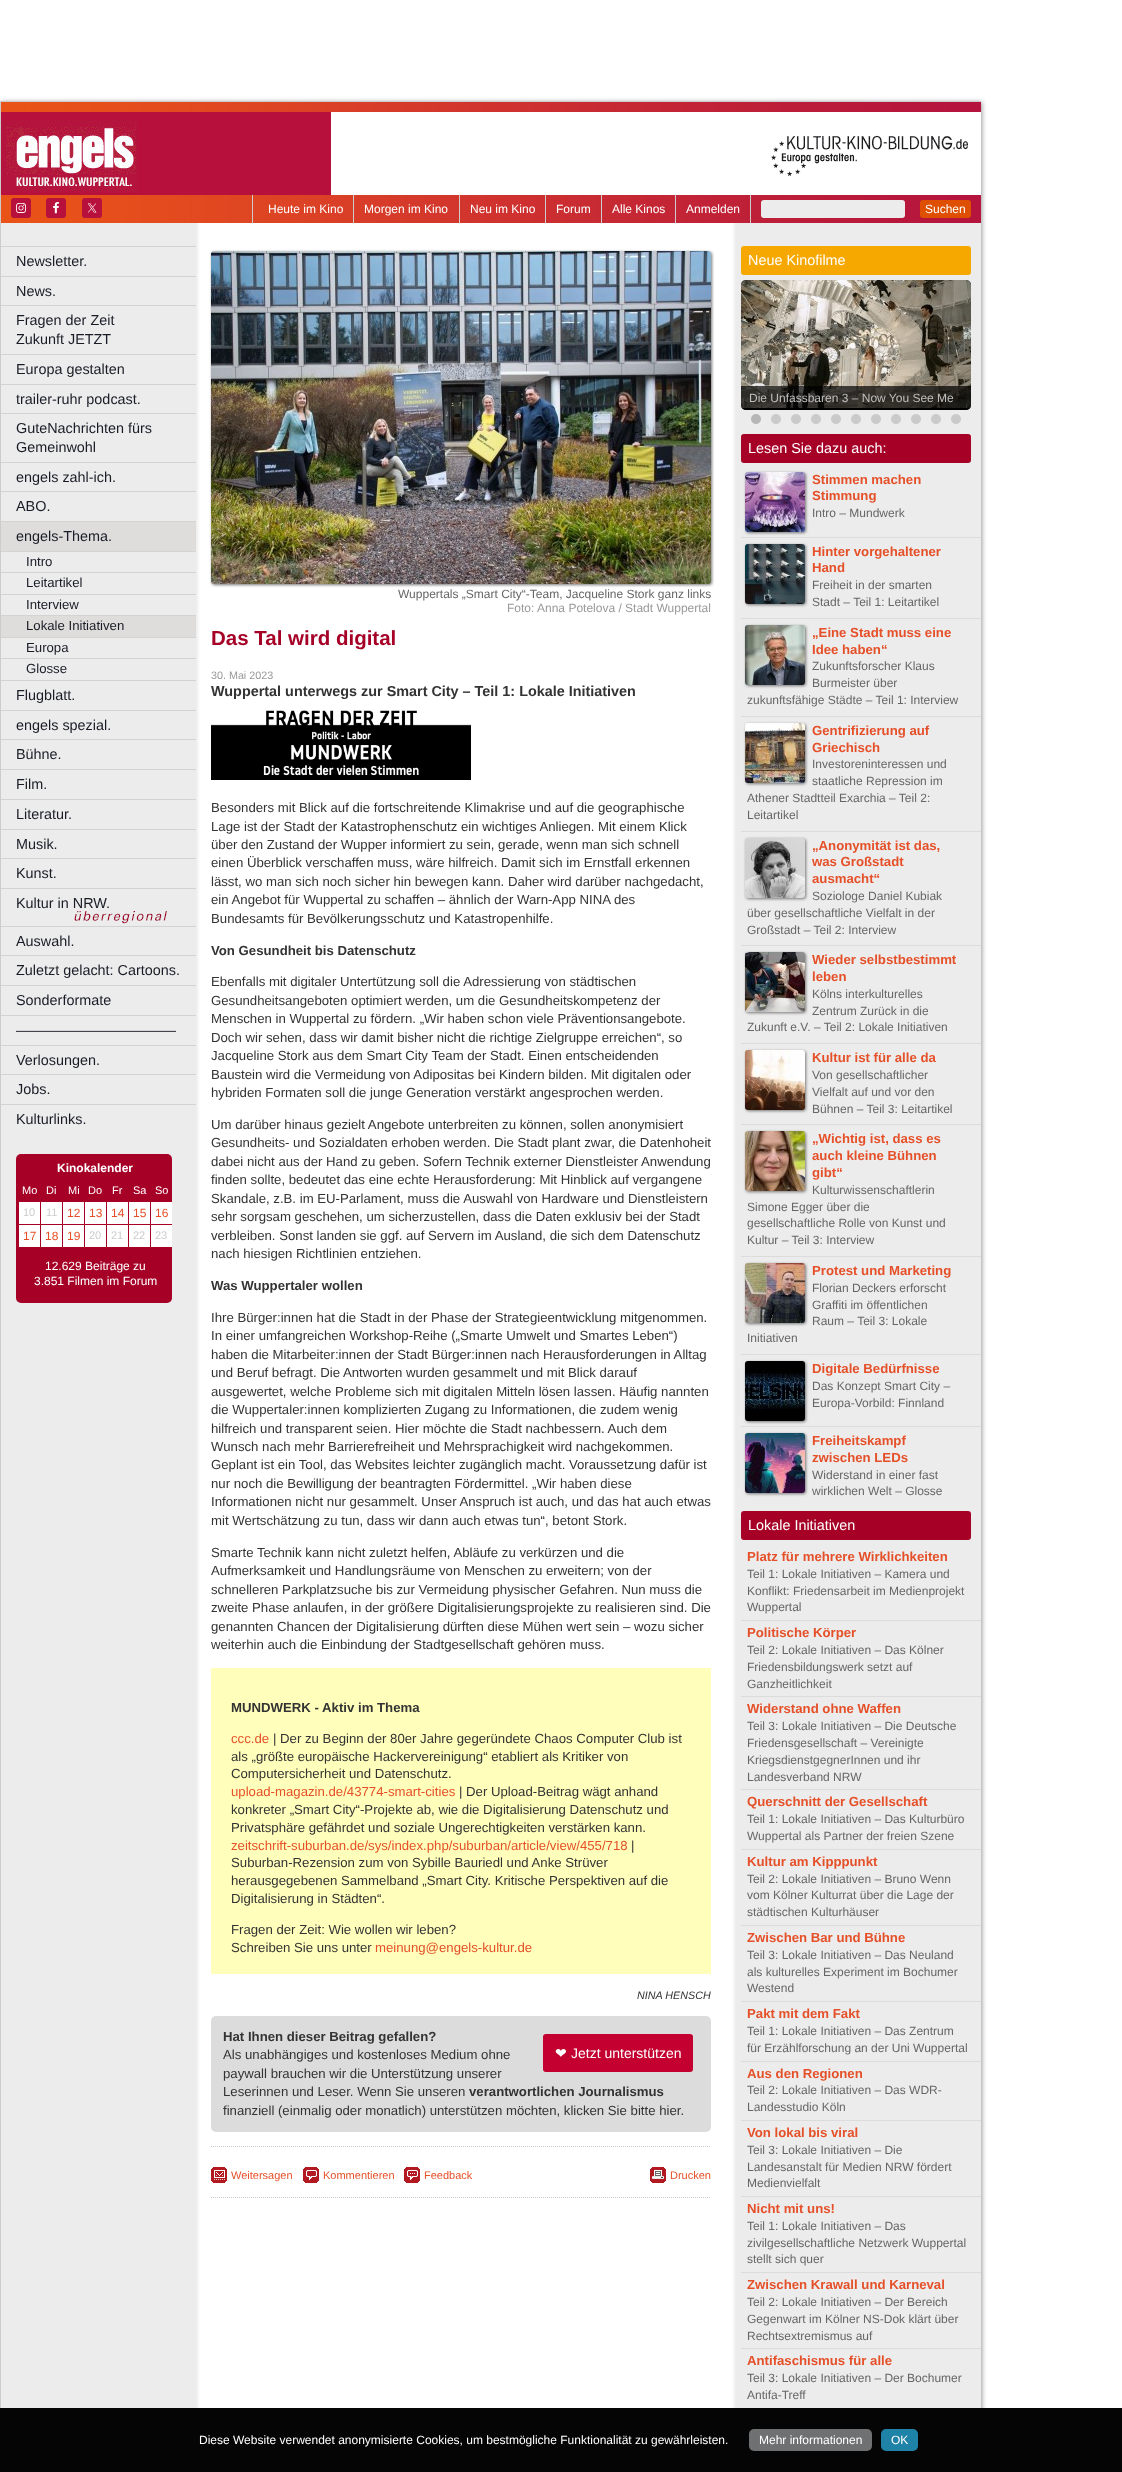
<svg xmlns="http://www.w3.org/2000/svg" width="1122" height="2472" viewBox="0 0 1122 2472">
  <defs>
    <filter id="blur1" x="-50%" y="-200%" width="200%" height="500%"><feGaussianBlur stdDeviation="2.5"/></filter>
    <filter id="blur2" x="-50%" y="-200%" width="200%" height="500%"><feGaussianBlur stdDeviation="1.5"/></filter>
  </defs>
  <rect width="100%" height="100%" fill="#ffffff"/>
  <rect x="1" y="102" width="981" height="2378" fill="#999999" filter="url(#blur1)"/>
  <image x="1" y="223" width="980" height="2185" href="img1.png"/>
  <rect x="0" y="101" width="981" height="1" fill="#cccccc"/>
  <rect x="0" y="101" width="1" height="2307" fill="#cccccc"/>
  <image x="1" y="102" width="980" height="10" href="img2.png"/>
  <rect x="1" y="112" width="330" height="83" fill="#b8103d"/>
  <image x="1" y="120" width="136" height="72" href="img3.png"/>
  <rect x="331" y="112" width="650" height="83" fill="#ffffff"/>
  <image x="771" y="135" width="197" height="41" href="img4.png"/>
  <image x="1" y="195" width="980" height="28" href="img5.png"/>
  <rect x="11" y="198" width="20" height="20" rx="3" fill="#b8103d"/>
  <image x="16" y="203" width="11" height="10" href="img6.png"/>
  <rect x="46" y="198" width="20" height="20" rx="3" fill="#b8103d"/>
  <image x="53" y="202" width="6" height="12" href="img7.png"/>
  <rect x="82" y="198" width="20" height="20" rx="3" fill="#b8103d"/>
  <image x="87" y="203" width="10" height="10" href="img8.png"/>
  <rect x="353" y="195" width="1" height="28" fill="#cccccc"/>
  <rect x="252" y="195" width="1" height="28" fill="#cccccc"/>
  <text x="268" y="213" font-family="Liberation Sans" font-size="12" fill="#ffffff">Heute im Kino</text>
  <rect x="459" y="195" width="1" height="28" fill="#cccccc"/>
  <text x="364" y="213" font-family="Liberation Sans" font-size="12" fill="#ffffff">Morgen im Kino</text>
  <rect x="545" y="195" width="1" height="28" fill="#cccccc"/>
  <text x="470" y="213" font-family="Liberation Sans" font-size="12" fill="#ffffff">Neu im Kino</text>
  <rect x="601" y="195" width="1" height="28" fill="#cccccc"/>
  <text x="556" y="213" font-family="Liberation Sans" font-size="12" fill="#ffffff">Forum</text>
  <rect x="675" y="195" width="1" height="28" fill="#cccccc"/>
  <text x="612" y="213" font-family="Liberation Sans" font-size="12" fill="#ffffff">Alle Kinos</text>
  <rect x="750" y="195" width="1" height="28" fill="#cccccc"/>
  <text x="686" y="213" font-family="Liberation Sans" font-size="12" fill="#ffffff">Anmelden</text>
  <rect x="761" y="200" width="144" height="18" rx="3" fill="#ececec"/>
  <rect x="920" y="200" width="51" height="18" rx="3" fill="#de4f01"/>
  <text x="925" y="213" font-family="Liberation Sans" font-size="12" fill="#ffffff">Suchen</text>
  <rect x="1" y="246" width="195" height="1" fill="#d3d3d3"/>
  <text x="16" y="266" font-family="Liberation Sans" font-size="14.4" fill="#191c26">Newsletter.</text>
  <rect x="1" y="276" width="195" height="1" fill="#d3d3d3"/>
  <text x="16" y="296" font-family="Liberation Sans" font-size="14.4" fill="#191c26">News.</text>
  <rect x="1" y="305" width="195" height="1" fill="#d3d3d3"/>
  <text x="16" y="325" font-family="Liberation Sans" font-size="14.4" fill="#191c26">Fragen der Zeit</text>
  <text x="16" y="344" font-family="Liberation Sans" font-size="14.4" fill="#191c26">Zukunft JETZT</text>
  <rect x="1" y="354" width="195" height="1" fill="#d3d3d3"/>
  <text x="16" y="374" font-family="Liberation Sans" font-size="14.4" fill="#191c26">Europa gestalten</text>
  <rect x="1" y="384" width="195" height="1" fill="#d3d3d3"/>
  <text x="16" y="404" font-family="Liberation Sans" font-size="14.4" fill="#191c26">trailer-ruhr podcast.</text>
  <rect x="1" y="413" width="195" height="1" fill="#d3d3d3"/>
  <text x="16" y="433" font-family="Liberation Sans" font-size="14.4" fill="#191c26">GuteNachrichten fürs</text>
  <text x="16" y="452" font-family="Liberation Sans" font-size="14.4" fill="#191c26">Gemeinwohl</text>
  <rect x="1" y="462" width="195" height="1" fill="#d3d3d3"/>
  <text x="16" y="482" font-family="Liberation Sans" font-size="14.4" fill="#191c26">engels zahl-ich.</text>
  <rect x="1" y="491" width="195" height="1" fill="#d3d3d3"/>
  <text x="16" y="511" font-family="Liberation Sans" font-size="14.4" fill="#191c26">ABO.</text>
  <rect x="1" y="521" width="195" height="1" fill="#d3d3d3"/>
  <rect x="1" y="522" width="195" height="29" fill="#dedddc"/>
  <text x="16" y="541" font-family="Liberation Sans" font-size="14.4" fill="#191c26">engels-Thema.</text>
  <rect x="1" y="551" width="195" height="1" fill="#d3d3d3"/>
  <text x="26" y="566" font-family="Liberation Sans" font-size="13.2" fill="#191c26">Intro</text>
  <rect x="1" y="572" width="195" height="1" fill="#d3d3d3"/>
  <text x="26" y="587" font-family="Liberation Sans" font-size="13.2" fill="#191c26">Leitartikel</text>
  <rect x="1" y="594" width="195" height="1" fill="#d3d3d3"/>
  <text x="26" y="609" font-family="Liberation Sans" font-size="13.2" fill="#191c26">Interview</text>
  <rect x="1" y="615" width="195" height="1" fill="#d3d3d3"/>
  <rect x="1" y="616" width="195" height="21" fill="#dedddc"/>
  <text x="26" y="630" font-family="Liberation Sans" font-size="13.2" fill="#191c26">Lokale Initiativen</text>
  <rect x="1" y="637" width="195" height="1" fill="#d3d3d3"/>
  <text x="26" y="652" font-family="Liberation Sans" font-size="13.2" fill="#191c26">Europa</text>
  <rect x="1" y="658" width="195" height="1" fill="#d3d3d3"/>
  <text x="26" y="673" font-family="Liberation Sans" font-size="13.2" fill="#191c26">Glosse</text>
  <rect x="1" y="680" width="195" height="1" fill="#d3d3d3"/>
  <text x="16" y="700" font-family="Liberation Sans" font-size="14.4" fill="#191c26">Flugblatt.</text>
  <rect x="1" y="710" width="195" height="1" fill="#d3d3d3"/>
  <text x="16" y="730" font-family="Liberation Sans" font-size="14.4" fill="#191c26">engels spezial.</text>
  <rect x="1" y="739" width="195" height="1" fill="#d3d3d3"/>
  <text x="16" y="759" font-family="Liberation Sans" font-size="14.4" fill="#191c26">Bühne.</text>
  <rect x="1" y="769" width="195" height="1" fill="#d3d3d3"/>
  <text x="16" y="789" font-family="Liberation Sans" font-size="14.4" fill="#191c26">Film.</text>
  <rect x="1" y="799" width="195" height="1" fill="#d3d3d3"/>
  <text x="16" y="819" font-family="Liberation Sans" font-size="14.4" fill="#191c26">Literatur.</text>
  <rect x="1" y="829" width="195" height="1" fill="#d3d3d3"/>
  <text x="16" y="849" font-family="Liberation Sans" font-size="14.4" fill="#191c26">Musik.</text>
  <rect x="1" y="858" width="195" height="1" fill="#d3d3d3"/>
  <text x="16" y="878" font-family="Liberation Sans" font-size="14.4" fill="#191c26">Kunst.</text>
  <rect x="1" y="888" width="195" height="1" fill="#d3d3d3"/>
  <image x="73" y="905" width="96" height="19" href="img9.png"/>
  <text x="16" y="908" font-family="Liberation Sans" font-size="14.4" fill="#191c26">Kultur in NRW.</text>
  <rect x="1" y="926" width="195" height="1" fill="#d3d3d3"/>
  <text x="16" y="946" font-family="Liberation Sans" font-size="14.4" fill="#191c26">Auswahl.</text>
  <rect x="1" y="955" width="195" height="1" fill="#d3d3d3"/>
  <text x="16" y="975" font-family="Liberation Sans" font-size="14.4" fill="#191c26">Zuletzt gelacht: Cartoons.</text>
  <rect x="1" y="985" width="195" height="1" fill="#d3d3d3"/>
  <text x="16" y="1005" font-family="Liberation Sans" font-size="14.4" fill="#191c26">Sonderformate</text>
  <rect x="1" y="1015" width="195" height="1" fill="#d3d3d3"/>
  <text x="16" y="1035" font-family="Liberation Sans" font-size="14.4" fill="#191c26">––––––––––––––––––––</text>
  <rect x="1" y="1045" width="195" height="1" fill="#d3d3d3"/>
  <text x="16" y="1065" font-family="Liberation Sans" font-size="14.4" fill="#191c26">Verlosungen.</text>
  <rect x="1" y="1074" width="195" height="1" fill="#d3d3d3"/>
  <text x="16" y="1094" font-family="Liberation Sans" font-size="14.4" fill="#191c26">Jobs.</text>
  <rect x="1" y="1104" width="195" height="1" fill="#d3d3d3"/>
  <text x="16" y="1124" font-family="Liberation Sans" font-size="14.4" fill="#191c26">Kulturlinks.</text>
  <rect x="16" y="1154" width="156" height="149" rx="5" fill="#a60027"/>
  <text x="57" y="1172" font-family="Liberation Sans" font-size="12" font-weight="bold" fill="#ffffff">Kinokalender</text>
  <text x="22" y="1194" font-family="Liberation Sans" font-size="11" fill="#ffffff">Mo</text>
  <text x="46" y="1194" font-family="Liberation Sans" font-size="11" fill="#ffffff">Di</text>
  <text x="68" y="1194" font-family="Liberation Sans" font-size="11" fill="#ffffff">Mi</text>
  <text x="88" y="1194" font-family="Liberation Sans" font-size="11" fill="#ffffff">Do</text>
  <text x="112" y="1194" font-family="Liberation Sans" font-size="11" fill="#ffffff">Fr</text>
  <text x="133" y="1194" font-family="Liberation Sans" font-size="11" fill="#ffffff">Sa</text>
  <text x="155" y="1194" font-family="Liberation Sans" font-size="11" fill="#ffffff">So</text>
  <rect x="19" y="1202" width="21" height="22" fill="#ffffff"/>
  <text x="23" y="1216" font-family="Liberation Sans" font-size="11" fill="#cccccc">10</text>
  <rect x="41" y="1202" width="21" height="22" fill="#ffffff"/>
  <text x="46" y="1216" font-family="Liberation Sans" font-size="11" fill="#cccccc">11</text>
  <rect x="63" y="1202" width="21" height="22" fill="#ffffff"/>
  <text x="67" y="1217" font-family="Liberation Sans" font-size="12" fill="#e55029">12</text>
  <rect x="85" y="1202" width="21" height="22" fill="#ffffff"/>
  <text x="89" y="1217" font-family="Liberation Sans" font-size="12" fill="#e55029">13</text>
  <rect x="107" y="1202" width="21" height="22" fill="#ffffff"/>
  <text x="111" y="1217" font-family="Liberation Sans" font-size="12" fill="#e55029">14</text>
  <rect x="129" y="1202" width="21" height="22" fill="#ffffff"/>
  <text x="133" y="1217" font-family="Liberation Sans" font-size="12" fill="#e55029">15</text>
  <rect x="151" y="1202" width="21" height="22" fill="#ffffff"/>
  <text x="155" y="1217" font-family="Liberation Sans" font-size="12" fill="#e55029">16</text>
  <rect x="19" y="1225" width="21" height="22" fill="#ffffff"/>
  <text x="23" y="1240" font-family="Liberation Sans" font-size="12" fill="#e55029">17</text>
  <rect x="41" y="1225" width="21" height="22" fill="#ffffff"/>
  <text x="45" y="1240" font-family="Liberation Sans" font-size="12" fill="#e55029">18</text>
  <rect x="63" y="1225" width="21" height="22" fill="#ffffff"/>
  <text x="67" y="1240" font-family="Liberation Sans" font-size="12" fill="#e55029">19</text>
  <rect x="85" y="1225" width="21" height="22" fill="#ffffff"/>
  <text x="89" y="1239" font-family="Liberation Sans" font-size="11" fill="#cccccc">20</text>
  <rect x="107" y="1225" width="21" height="22" fill="#ffffff"/>
  <text x="111" y="1239" font-family="Liberation Sans" font-size="11" fill="#cccccc">21</text>
  <rect x="129" y="1225" width="21" height="22" fill="#ffffff"/>
  <text x="133" y="1239" font-family="Liberation Sans" font-size="11" fill="#cccccc">22</text>
  <rect x="151" y="1225" width="21" height="22" fill="#ffffff"/>
  <text x="155" y="1239" font-family="Liberation Sans" font-size="11" fill="#cccccc">23</text>
  <text x="45" y="1270" font-family="Liberation Sans" font-size="12" fill="#ffffff">12.629 Beiträge zu</text>
  <text x="34" y="1285" font-family="Liberation Sans" font-size="12" fill="#ffffff">3.851 Filmen im Forum</text>
  <rect x="212" y="252" width="500" height="333" rx="3" fill="#777777" filter="url(#blur2)"/>
  <image x="211" y="251" width="500" height="333" href="img10.png"/>
  <text x="398" y="598" font-family="Liberation Sans" font-size="12" fill="#666666">Wuppertals „Smart City“-Team, Jacqueline Stork ganz links</text>
  <text x="507" y="612" font-family="Liberation Sans" font-size="12" fill="#999999">Foto: Anna Potelova / Stadt Wuppertal</text>
  <text x="211" y="645" font-family="Liberation Sans" font-size="20.5" font-weight="bold" fill="#a60027">Das Tal wird digital</text>
  <text x="211" y="679" font-family="Liberation Sans" font-size="10.75" fill="#999999">30. Mai 2023</text>
  <text x="211" y="696" font-family="Liberation Sans" font-size="14.4" font-weight="bold" fill="#333333">Wuppertal unterwegs zur Smart City – Teil 1: Lokale Initiativen</text>
  <image x="211" y="710" width="260" height="70" href="img11.png"/>
  <text x="211" y="812" font-family="Liberation Sans" font-size="13.2" fill="#333333">Besonders mit Blick auf die fortschreitende Klimakrise und auf die geographische</text>
  <text x="211" y="831" font-family="Liberation Sans" font-size="13.2" fill="#333333">Lage ist der Stadt der Katastrophenschutz ein wichtiges Anliegen. Mit einem Klick</text>
  <text x="211" y="849" font-family="Liberation Sans" font-size="13.2" fill="#333333">über den Zustand der Wupper informiert zu sein, gerade, wenn man sich schnell</text>
  <text x="211" y="867" font-family="Liberation Sans" font-size="13.2" fill="#333333">einen Überblick verschaffen muss, wäre hilfreich. Damit sich im Ernstfall erkennen</text>
  <text x="211" y="886" font-family="Liberation Sans" font-size="13.2" fill="#333333">lässt, wo man sich noch sicher hin bewegen kann. Daher wird darüber nachgedacht,</text>
  <text x="211" y="904" font-family="Liberation Sans" font-size="13.2" fill="#333333">ein Angebot für Wuppertal zu schaffen – ähnlich der Warn-App NINA des</text>
  <text x="211" y="923" font-family="Liberation Sans" font-size="13.2" fill="#333333">Bundesamts für Bevölkerungsschutz und Katastropenhilfe.</text>
  <text x="211" y="955" font-family="Liberation Sans" font-size="13.2" font-weight="bold" fill="#333333">Von Gesundheit bis Datenschutz</text>
  <text x="211" y="986" font-family="Liberation Sans" font-size="13.2" fill="#333333">Ebenfalls mit digitaler Untertützung soll die Adressierung von städtischen</text>
  <text x="211" y="1005" font-family="Liberation Sans" font-size="13.2" fill="#333333">Gesundheitsangeboten optimiert werden, um die Gesundheitskompetenz der</text>
  <text x="211" y="1023" font-family="Liberation Sans" font-size="13.2" fill="#333333">Menschen in Wuppertal zu fördern. „Wir haben schon viele Präventionsangebote.</text>
  <text x="211" y="1042" font-family="Liberation Sans" font-size="13.2" fill="#333333">Doch wir sehen, dass wir damit bisher nicht die richtige Zielgruppe erreichen“, so</text>
  <text x="211" y="1060" font-family="Liberation Sans" font-size="13.2" fill="#333333">Jacqueline Stork aus dem Smart City Team der Stadt. Einen entscheidenden</text>
  <text x="211" y="1079" font-family="Liberation Sans" font-size="13.2" fill="#333333">Baustein wird die Vermeidung von Adipositas bei Kindern bilden. Mit digitalen oder</text>
  <text x="211" y="1097" font-family="Liberation Sans" font-size="13.2" fill="#333333">hybriden Formaten soll die junge Generation verstärkt angesprochen werden.</text>
  <text x="211" y="1129" font-family="Liberation Sans" font-size="13.2" fill="#333333">Um darüber hinaus gezielt Angebote unterbreiten zu können, sollen anonymisiert</text>
  <text x="211" y="1147" font-family="Liberation Sans" font-size="13.2" fill="#333333">Gesundheits- und Sozialdaten erhoben werden. Die Stadt plant zwar, die Datenhoheit</text>
  <text x="211" y="1166" font-family="Liberation Sans" font-size="13.2" fill="#333333">dabei nicht aus der Hand zu geben. Sofern Technik externer Dienstleister Anwendung</text>
  <text x="211" y="1184" font-family="Liberation Sans" font-size="13.2" fill="#333333">finden sollte, bedeutet das eine echte Herausforderung: Mit Hinblick auf vergangene</text>
  <text x="211" y="1203" font-family="Liberation Sans" font-size="13.2" fill="#333333">Skandale, z.B. im EU-Parlament, muss die Auswahl von Hardware und Dienstleistern</text>
  <text x="211" y="1221" font-family="Liberation Sans" font-size="13.2" fill="#333333">sehr sorgsam geschehen, um sicherzustellen, dass die Daten exklusiv bei der Stadt</text>
  <text x="211" y="1240" font-family="Liberation Sans" font-size="13.2" fill="#333333">verbleiben. Sonst landen sie ggf. auf Servern im Ausland, die sich dem Datenschutz</text>
  <text x="211" y="1258" font-family="Liberation Sans" font-size="13.2" fill="#333333">nach hiesigen Richtlinien entziehen.</text>
  <text x="211" y="1290" font-family="Liberation Sans" font-size="13.2" font-weight="bold" fill="#333333">Was Wuppertaler wollen</text>
  <text x="211" y="1322" font-family="Liberation Sans" font-size="13.2" fill="#333333">Ihre Bürger:innen hat die Stadt in der Phase der Strategieentwicklung mitgenommen.</text>
  <text x="211" y="1340" font-family="Liberation Sans" font-size="13.2" fill="#333333">In einer umfangreichen Workshop-Reihe („Smarte Umwelt und Smartes Leben“)</text>
  <text x="211" y="1359" font-family="Liberation Sans" font-size="13.2" fill="#333333">haben die Mitarbeiter:innen der Stadt Bürger:innen nach Herausforderungen in Alltag</text>
  <text x="211" y="1377" font-family="Liberation Sans" font-size="13.2" fill="#333333">und Beruf befragt. Die Antworten wurden gesammelt und mit Blick darauf</text>
  <text x="211" y="1396" font-family="Liberation Sans" font-size="13.2" fill="#333333">ausgewertet, welche Probleme sich mit digitalen Mitteln lösen lassen. Häufig nannten</text>
  <text x="211" y="1414" font-family="Liberation Sans" font-size="13.2" fill="#333333">die Wuppertaler:innen komplizierten Zugang zu Informationen, die zudem wenig</text>
  <text x="211" y="1433" font-family="Liberation Sans" font-size="13.2" fill="#333333">hilfreich und transparent seien. Hier möchte die Stadt nachbessern. Auch dem</text>
  <text x="211" y="1451" font-family="Liberation Sans" font-size="13.2" fill="#333333">Wunsch nach mehr Barrierefreiheit und Mehrsprachigkeit wird nachgekommen.</text>
  <text x="211" y="1469" font-family="Liberation Sans" font-size="13.2" fill="#333333">Geplant ist ein Tool, das Websites leichter zugänglich macht. Voraussetzung dafür ist</text>
  <text x="211" y="1488" font-family="Liberation Sans" font-size="13.2" fill="#333333">nur noch die Bewilligung der beantragten Fördermittel. „Wir haben diese</text>
  <text x="211" y="1506" font-family="Liberation Sans" font-size="13.2" fill="#333333">Informationen nicht nur gesammelt. Unser Anspruch ist auch, und das hat auch etwas</text>
  <text x="211" y="1525" font-family="Liberation Sans" font-size="13.2" fill="#333333">mit Wertschätzung zu tun, dass wir dann auch etwas tun“, betont Stork.</text>
  <text x="211" y="1557" font-family="Liberation Sans" font-size="13.2" fill="#333333">Smarte Technik kann nicht zuletzt helfen, Abläufe zu verkürzen und die</text>
  <text x="211" y="1575" font-family="Liberation Sans" font-size="13.2" fill="#333333">Aufmerksamkeit und Handlungsräume von Menschen zu erweitern; von der</text>
  <text x="211" y="1594" font-family="Liberation Sans" font-size="13.2" fill="#333333">schnelleren Parkplatzsuche bis zur Vermeidung physischer Gefahren. Nun muss die</text>
  <text x="211" y="1612" font-family="Liberation Sans" font-size="13.2" fill="#333333">zweite Phase anlaufen, in der größere Digitalisierungsprojekte zu realisieren sind. Die</text>
  <text x="211" y="1631" font-family="Liberation Sans" font-size="13.2" fill="#333333">genannten Chancen der Digitalisierung dürften diese Mühen wert sein – wozu sicher</text>
  <text x="211" y="1649" font-family="Liberation Sans" font-size="13.2" fill="#333333">weiterhin auch die Einbindung der Stadtgesellschaft gehören muss.</text>
  <rect x="211" y="1668" width="500" height="306" fill="#ffffbb"/>
  <text x="231" y="1712" font-family="Liberation Sans" font-size="13.2" font-weight="bold" fill="#333333">MUNDWERK - Aktiv im Thema</text>
  <text x="231" y="1743" font-family="Liberation Sans" font-size="13.2" fill="#e55029">ccc.de</text>
  <text x="273" y="1743" font-family="Liberation Sans" font-size="13.2" fill="#333333">| Der zu Beginn der 80er Jahre gegeründete Chaos Computer Club ist</text>
  <text x="231" y="1761" font-family="Liberation Sans" font-size="13.2" fill="#333333">als „größte europäische Hackervereinigung“ etabliert als Kritiker von</text>
  <text x="231" y="1778" font-family="Liberation Sans" font-size="13.2" fill="#333333">Computersicherheit und Datenschutz.</text>
  <text x="231" y="1796" font-family="Liberation Sans" font-size="13.2" fill="#e55029">upload-magazin.de/43774-smart-cities</text>
  <text x="459" y="1796" font-family="Liberation Sans" font-size="13.2" fill="#333333">| Der Upload-Beitrag wägt anhand</text>
  <text x="231" y="1814" font-family="Liberation Sans" font-size="13.2" fill="#333333">konkreter „Smart City“-Projekte ab, wie die Digitalisierung Datenschutz und</text>
  <text x="231" y="1832" font-family="Liberation Sans" font-size="13.2" fill="#333333">Privatsphäre gefährdet und soziale Ungerechtigkeiten verstärken kann.</text>
  <text x="231" y="1850" font-family="Liberation Sans" font-size="13.2" fill="#e55029">zeitschrift-suburban.de/sys/index.php/suburban/article/view/455/718</text>
  <text x="631" y="1850" font-family="Liberation Sans" font-size="13.2" fill="#333333">|</text>
  <text x="231" y="1867" font-family="Liberation Sans" font-size="13.2" fill="#333333">Suburban-Rezension zum von Sybille Bauriedl und Anke Strüver</text>
  <text x="231" y="1885" font-family="Liberation Sans" font-size="13.2" fill="#333333">herausgegebenen Sammelband „Smart City. Kritische Perspektiven auf die</text>
  <text x="231" y="1903" font-family="Liberation Sans" font-size="13.2" fill="#333333">Digitalisierung in Städten“.</text>
  <text x="231" y="1934" font-family="Liberation Sans" font-size="13.2" fill="#333333">Fragen der Zeit: Wie wollen wir leben?</text>
  <text x="231" y="1952" font-family="Liberation Sans" font-size="13.2" fill="#333333">Schreiben Sie uns unter</text>
  <text x="375" y="1952" font-family="Liberation Sans" font-size="13.2" fill="#e55029">meinung@engels-kultur.de</text>
  <text x="637" y="1999" font-family="Liberation Sans" font-size="10.75" font-style="italic" fill="#333333">NINA HENSCH</text>
  <rect x="211" y="2016" width="500" height="116" rx="5" fill="#dcdcdc"/>
  <text x="223" y="2041" font-family="Liberation Sans" font-size="13.2" font-weight="bold" fill="#333333">Hat Ihnen dieser Beitrag gefallen?</text>
  <text x="223" y="2059" font-family="Liberation Sans" font-size="13.2" fill="#333333">Als unabhängiges und kostenloses Medium ohne</text>
  <text x="223" y="2078" font-family="Liberation Sans" font-size="13.2" fill="#333333">paywall brauchen wir die Unterstützung unserer</text>
  <text x="223" y="2096" font-family="Liberation Sans" font-size="13.2" fill="#333333">Leserinnen und Leser. Wenn Sie unseren</text>
  <text x="469" y="2096" font-family="Liberation Sans" font-size="13.2" font-weight="bold" fill="#333333">verantwortlichen Journalismus</text>
  <text x="223" y="2115" font-family="Liberation Sans" font-size="13.2" fill="#333333">finanziell (einmalig oder monatlich) unterstützen möchten, klicken Sie bitte hier.</text>
  <rect x="543" y="2034" width="150" height="38" rx="3" fill="#c3002f"/>
  <text x="555" y="2058" font-family="DejaVu Sans" font-size="14" fill="#ffffff">❤</text>
  <text x="571" y="2058" font-family="Liberation Sans" font-size="14" fill="#ffffff">Jetzt unterstützen</text>
  <path d="M211 2146.5H711" fill="none" stroke="#cccccc" stroke-dasharray="1 1"/>
  <image x="211" y="2167" width="16" height="16" href="img12.png"/>
  <text x="231" y="2179" font-family="Liberation Sans" font-size="11" fill="#e55029">Weitersagen</text>
  <image x="303" y="2167" width="16" height="16" href="img13.png"/>
  <text x="323" y="2179" font-family="Liberation Sans" font-size="11" fill="#e55029">Kommentieren</text>
  <image x="404" y="2167" width="16" height="16" href="img14.png"/>
  <text x="424" y="2179" font-family="Liberation Sans" font-size="11" fill="#e55029">Feedback</text>
  <image x="650" y="2167" width="16" height="16" href="img15.png"/>
  <text x="670" y="2179" font-family="Liberation Sans" font-size="11" fill="#e55029">Drucken</text>
  <path d="M211 2197.5H711" fill="none" stroke="#cccccc" stroke-dasharray="1 1"/>
  <rect x="741" y="246" width="230" height="29" rx="3" fill="#f6a800"/>
  <text x="748" y="265" font-family="Liberation Sans" font-size="14.4" fill="#ffffff">Neue Kinofilme</text>
  <rect x="741" y="280" width="230" height="130" rx="5" fill="#000000"/>
  <image x="741" y="280" width="230" height="128" href="img16.png"/>
  <path d="M741 386H971V405C971 408 969 410 966 410H746C743 410 741 408 741 405Z" fill="#000000" fill-opacity="0.7"/>
  <text x="749" y="402" font-family="Liberation Sans" font-size="12" fill="#bfbfbd">Die Unfassbaren 3 – Now You See Me</text>
  <image x="751" y="414" width="10" height="10" href="img17.png"/>
  <image x="771" y="414" width="10" height="10" href="img18.png"/>
  <image x="791" y="414" width="10" height="10" href="img18.png"/>
  <image x="811" y="414" width="10" height="10" href="img18.png"/>
  <image x="831" y="414" width="10" height="10" href="img18.png"/>
  <image x="851" y="414" width="10" height="10" href="img18.png"/>
  <image x="871" y="414" width="10" height="10" href="img18.png"/>
  <image x="891" y="414" width="10" height="10" href="img18.png"/>
  <image x="911" y="414" width="10" height="10" href="img18.png"/>
  <image x="931" y="414" width="10" height="10" href="img18.png"/>
  <image x="951" y="414" width="10" height="10" href="img18.png"/>
  <rect x="741" y="434" width="230" height="29" rx="3" fill="#a60027"/>
  <text x="748" y="453" font-family="Liberation Sans" font-size="14.4" fill="#ffffff">Lesen Sie dazu auch:</text>
  <rect x="741" y="537" width="240" height="1" fill="#dcdcdc"/>
  <rect x="746" y="473" width="60" height="60" rx="3" fill="#777777" filter="url(#blur2)"/>
  <image x="745" y="472" width="60" height="60" href="img19.png"/>
  <text x="812" y="484" font-family="Liberation Sans" font-size="13.2" font-weight="bold" fill="#e55029">Stimmen machen</text>
  <text x="812" y="500" font-family="Liberation Sans" font-size="13.2" font-weight="bold" fill="#e55029">Stimmung</text>
  <text x="812" y="517" font-family="Liberation Sans" font-size="12" fill="#666666">Intro – Mundwerk</text>
  <rect x="746" y="545" width="60" height="60" rx="3" fill="#777777" filter="url(#blur2)"/>
  <image x="745" y="544" width="60" height="60" href="img20.png"/>
  <text x="812" y="556" font-family="Liberation Sans" font-size="13.2" font-weight="bold" fill="#e55029">Hinter vorgehaltener</text>
  <text x="812" y="572" font-family="Liberation Sans" font-size="13.2" font-weight="bold" fill="#e55029">Hand</text>
  <text x="812" y="589" font-family="Liberation Sans" font-size="12" fill="#666666">Freiheit in der smarten</text>
  <text x="812" y="606" font-family="Liberation Sans" font-size="12" fill="#666666">Stadt – Teil 1: Leitartikel</text>
  <rect x="741" y="618" width="240" height="1" fill="#dcdcdc"/>
  <rect x="746" y="626" width="60" height="60" rx="3" fill="#777777" filter="url(#blur2)"/>
  <image x="745" y="625" width="60" height="60" href="img21.png"/>
  <text x="812" y="637" font-family="Liberation Sans" font-size="13.2" font-weight="bold" fill="#e55029">„Eine Stadt muss eine</text>
  <text x="812" y="654" font-family="Liberation Sans" font-size="13.2" font-weight="bold" fill="#e55029">Idee haben“</text>
  <text x="812" y="670" font-family="Liberation Sans" font-size="12" fill="#666666">Zukunftsforscher Klaus</text>
  <text x="812" y="687" font-family="Liberation Sans" font-size="12" fill="#666666">Burmeister über</text>
  <text x="747" y="704" font-family="Liberation Sans" font-size="12" fill="#666666">zukunftsfähige Städte – Teil 1: Interview</text>
  <rect x="741" y="716" width="240" height="1" fill="#dcdcdc"/>
  <rect x="746" y="724" width="60" height="60" rx="3" fill="#777777" filter="url(#blur2)"/>
  <image x="745" y="723" width="60" height="60" href="img22.png"/>
  <text x="812" y="735" font-family="Liberation Sans" font-size="13.2" font-weight="bold" fill="#e55029">Gentrifizierung auf</text>
  <text x="812" y="752" font-family="Liberation Sans" font-size="13.2" font-weight="bold" fill="#e55029">Griechisch</text>
  <text x="812" y="768" font-family="Liberation Sans" font-size="12" fill="#666666">Investoreninteressen und</text>
  <text x="812" y="785" font-family="Liberation Sans" font-size="12" fill="#666666">staatliche Repression im</text>
  <text x="747" y="802" font-family="Liberation Sans" font-size="12" fill="#666666">Athener Stadtteil Exarchia – Teil 2:</text>
  <text x="747" y="819" font-family="Liberation Sans" font-size="12" fill="#666666">Leitartikel</text>
  <rect x="741" y="831" width="240" height="1" fill="#dcdcdc"/>
  <rect x="746" y="839" width="60" height="60" rx="3" fill="#777777" filter="url(#blur2)"/>
  <image x="745" y="838" width="60" height="60" href="img23.png"/>
  <text x="812" y="850" font-family="Liberation Sans" font-size="13.2" font-weight="bold" fill="#e55029">„Anonymität ist das,</text>
  <text x="812" y="866" font-family="Liberation Sans" font-size="13.2" font-weight="bold" fill="#e55029">was Großstadt</text>
  <text x="812" y="883" font-family="Liberation Sans" font-size="13.2" font-weight="bold" fill="#e55029">ausmacht“</text>
  <text x="812" y="900" font-family="Liberation Sans" font-size="12" fill="#666666">Soziologe Daniel Kubiak</text>
  <text x="747" y="917" font-family="Liberation Sans" font-size="12" fill="#666666">über gesellschaftliche Vielfalt in der</text>
  <text x="747" y="934" font-family="Liberation Sans" font-size="12" fill="#666666">Großstadt – Teil 2: Interview</text>
  <rect x="741" y="945" width="240" height="1" fill="#dcdcdc"/>
  <rect x="746" y="953" width="60" height="60" rx="3" fill="#777777" filter="url(#blur2)"/>
  <image x="745" y="952" width="60" height="60" href="img24.png"/>
  <text x="812" y="964" font-family="Liberation Sans" font-size="13.2" font-weight="bold" fill="#e55029">Wieder selbstbestimmt</text>
  <text x="812" y="981" font-family="Liberation Sans" font-size="13.2" font-weight="bold" fill="#e55029">leben</text>
  <text x="812" y="998" font-family="Liberation Sans" font-size="12" fill="#666666">Kölns interkulturelles</text>
  <text x="812" y="1015" font-family="Liberation Sans" font-size="12" fill="#666666">Zentrum Zurück in die</text>
  <text x="747" y="1031" font-family="Liberation Sans" font-size="12" fill="#666666">Zukunft e.V. – Teil 2: Lokale Initiativen</text>
  <rect x="741" y="1043" width="240" height="1" fill="#dcdcdc"/>
  <rect x="746" y="1051" width="60" height="60" rx="3" fill="#777777" filter="url(#blur2)"/>
  <image x="745" y="1050" width="60" height="60" href="img25.png"/>
  <text x="812" y="1062" font-family="Liberation Sans" font-size="13.2" font-weight="bold" fill="#e55029">Kultur ist für alle da</text>
  <text x="812" y="1079" font-family="Liberation Sans" font-size="12" fill="#666666">Von gesellschaftlicher</text>
  <text x="812" y="1096" font-family="Liberation Sans" font-size="12" fill="#666666">Vielfalt auf und vor den</text>
  <text x="812" y="1113" font-family="Liberation Sans" font-size="12" fill="#666666">Bühnen – Teil 3: Leitartikel</text>
  <rect x="741" y="1124" width="240" height="1" fill="#dcdcdc"/>
  <rect x="746" y="1132" width="60" height="60" rx="3" fill="#777777" filter="url(#blur2)"/>
  <image x="745" y="1131" width="60" height="60" href="img26.png"/>
  <text x="812" y="1143" font-family="Liberation Sans" font-size="13.2" font-weight="bold" fill="#e55029">„Wichtig ist, dass es</text>
  <text x="812" y="1160" font-family="Liberation Sans" font-size="13.2" font-weight="bold" fill="#e55029">auch kleine Bühnen</text>
  <text x="812" y="1177" font-family="Liberation Sans" font-size="13.2" font-weight="bold" fill="#e55029">gibt“</text>
  <text x="812" y="1194" font-family="Liberation Sans" font-size="12" fill="#666666">Kulturwissenschaftlerin</text>
  <text x="747" y="1211" font-family="Liberation Sans" font-size="12" fill="#666666">Simone Egger über die</text>
  <text x="747" y="1227" font-family="Liberation Sans" font-size="12" fill="#666666">gesellschaftliche Rolle von Kunst und</text>
  <text x="747" y="1244" font-family="Liberation Sans" font-size="12" fill="#666666">Kultur – Teil 3: Interview</text>
  <rect x="741" y="1256" width="240" height="1" fill="#dcdcdc"/>
  <rect x="746" y="1264" width="60" height="60" rx="3" fill="#777777" filter="url(#blur2)"/>
  <image x="745" y="1263" width="60" height="60" href="img27.png"/>
  <text x="812" y="1275" font-family="Liberation Sans" font-size="13.2" font-weight="bold" fill="#e55029">Protest und Marketing</text>
  <text x="812" y="1292" font-family="Liberation Sans" font-size="12" fill="#666666">Florian Deckers erforscht</text>
  <text x="812" y="1309" font-family="Liberation Sans" font-size="12" fill="#666666">Graffiti im öffentlichen</text>
  <text x="812" y="1325" font-family="Liberation Sans" font-size="12" fill="#666666">Raum – Teil 3: Lokale</text>
  <text x="747" y="1342" font-family="Liberation Sans" font-size="12" fill="#666666">Initiativen</text>
  <rect x="741" y="1354" width="240" height="1" fill="#dcdcdc"/>
  <rect x="741" y="1426" width="240" height="1" fill="#dcdcdc"/>
  <rect x="746" y="1362" width="60" height="60" rx="3" fill="#777777" filter="url(#blur2)"/>
  <image x="745" y="1361" width="60" height="60" href="img28.png"/>
  <text x="812" y="1373" font-family="Liberation Sans" font-size="13.2" font-weight="bold" fill="#e55029">Digitale Bedürfnisse</text>
  <text x="812" y="1390" font-family="Liberation Sans" font-size="12" fill="#666666">Das Konzept Smart City –</text>
  <text x="812" y="1407" font-family="Liberation Sans" font-size="12" fill="#666666">Europa-Vorbild: Finnland</text>
  <rect x="746" y="1434" width="60" height="60" rx="3" fill="#777777" filter="url(#blur2)"/>
  <image x="745" y="1433" width="60" height="60" href="img29.png"/>
  <text x="812" y="1445" font-family="Liberation Sans" font-size="13.2" font-weight="bold" fill="#e55029">Freiheitskampf</text>
  <text x="812" y="1462" font-family="Liberation Sans" font-size="13.2" font-weight="bold" fill="#e55029">zwischen LEDs</text>
  <text x="812" y="1479" font-family="Liberation Sans" font-size="12" fill="#666666">Widerstand in einer fast</text>
  <text x="812" y="1495" font-family="Liberation Sans" font-size="12" fill="#666666">wirklichen Welt – Glosse</text>
  <rect x="741" y="1511" width="230" height="29" rx="3" fill="#a60027"/>
  <text x="748" y="1530" font-family="Liberation Sans" font-size="14.4" fill="#ffffff">Lokale Initiativen</text>
  <rect x="741" y="1620" width="240" height="1" fill="#dcdcdc"/>
  <text x="747" y="1561" font-family="Liberation Sans" font-size="13.2" font-weight="bold" fill="#e55029">Platz für mehrere Wirklichkeiten</text>
  <text x="747" y="1578" font-family="Liberation Sans" font-size="12" fill="#666666">Teil 1: Lokale Initiativen – Kamera und</text>
  <text x="747" y="1595" font-family="Liberation Sans" font-size="12" fill="#666666">Konflikt: Friedensarbeit im Medienprojekt</text>
  <text x="747" y="1611" font-family="Liberation Sans" font-size="12" fill="#666666">Wuppertal</text>
  <rect x="741" y="1696" width="240" height="1" fill="#dcdcdc"/>
  <text x="747" y="1637" font-family="Liberation Sans" font-size="13.2" font-weight="bold" fill="#e55029">Politische Körper</text>
  <text x="747" y="1654" font-family="Liberation Sans" font-size="12" fill="#666666">Teil 2: Lokale Initiativen – Das Kölner</text>
  <text x="747" y="1671" font-family="Liberation Sans" font-size="12" fill="#666666">Friedensbildungswerk setzt auf</text>
  <text x="747" y="1688" font-family="Liberation Sans" font-size="12" fill="#666666">Ganzheitlichkeit</text>
  <rect x="741" y="1789" width="240" height="1" fill="#dcdcdc"/>
  <text x="747" y="1713" font-family="Liberation Sans" font-size="13.2" font-weight="bold" fill="#e55029">Widerstand ohne Waffen</text>
  <text x="747" y="1730" font-family="Liberation Sans" font-size="12" fill="#666666">Teil 3: Lokale Initiativen – Die Deutsche</text>
  <text x="747" y="1747" font-family="Liberation Sans" font-size="12" fill="#666666">Friedensgesellschaft – Vereinigte</text>
  <text x="747" y="1764" font-family="Liberation Sans" font-size="12" fill="#666666">KriegsdienstgegnerInnen und ihr</text>
  <text x="747" y="1781" font-family="Liberation Sans" font-size="12" fill="#666666">Landesverband NRW</text>
  <rect x="741" y="1849" width="240" height="1" fill="#dcdcdc"/>
  <text x="747" y="1806" font-family="Liberation Sans" font-size="13.2" font-weight="bold" fill="#e55029">Querschnitt der Gesellschaft</text>
  <text x="747" y="1823" font-family="Liberation Sans" font-size="12" fill="#666666">Teil 1: Lokale Initiativen – Das Kulturbüro</text>
  <text x="747" y="1840" font-family="Liberation Sans" font-size="12" fill="#666666">Wuppertal als Partner der freien Szene</text>
  <rect x="741" y="1925" width="240" height="1" fill="#dcdcdc"/>
  <text x="747" y="1866" font-family="Liberation Sans" font-size="13.2" font-weight="bold" fill="#e55029">Kultur am Kipppunkt</text>
  <text x="747" y="1883" font-family="Liberation Sans" font-size="12" fill="#666666">Teil 2: Lokale Initiativen – Bruno Wenn</text>
  <text x="747" y="1899" font-family="Liberation Sans" font-size="12" fill="#666666">vom Kölner Kulturrat über die Lage der</text>
  <text x="747" y="1916" font-family="Liberation Sans" font-size="12" fill="#666666">städtischen Kulturhäuser</text>
  <rect x="741" y="2001" width="240" height="1" fill="#dcdcdc"/>
  <text x="747" y="1942" font-family="Liberation Sans" font-size="13.2" font-weight="bold" fill="#e55029">Zwischen Bar und Bühne</text>
  <text x="747" y="1959" font-family="Liberation Sans" font-size="12" fill="#666666">Teil 3: Lokale Initiativen – Das Neuland</text>
  <text x="747" y="1976" font-family="Liberation Sans" font-size="12" fill="#666666">als kulturelles Experiment im Bochumer</text>
  <text x="747" y="1992" font-family="Liberation Sans" font-size="12" fill="#666666">Westend</text>
  <rect x="741" y="2061" width="240" height="1" fill="#dcdcdc"/>
  <text x="747" y="2018" font-family="Liberation Sans" font-size="13.2" font-weight="bold" fill="#e55029">Pakt mit dem Fakt</text>
  <text x="747" y="2035" font-family="Liberation Sans" font-size="12" fill="#666666">Teil 1: Lokale Initiativen – Das Zentrum</text>
  <text x="747" y="2052" font-family="Liberation Sans" font-size="12" fill="#666666">für Erzählforschung an der Uni Wuppertal</text>
  <rect x="741" y="2120" width="240" height="1" fill="#dcdcdc"/>
  <text x="747" y="2078" font-family="Liberation Sans" font-size="13.2" font-weight="bold" fill="#e55029">Aus den Regionen</text>
  <text x="747" y="2094" font-family="Liberation Sans" font-size="12" fill="#666666">Teil 2: Lokale Initiativen – Das WDR-</text>
  <text x="747" y="2111" font-family="Liberation Sans" font-size="12" fill="#666666">Landesstudio Köln</text>
  <rect x="741" y="2196" width="240" height="1" fill="#dcdcdc"/>
  <text x="747" y="2137" font-family="Liberation Sans" font-size="13.2" font-weight="bold" fill="#e55029">Von lokal bis viral</text>
  <text x="747" y="2154" font-family="Liberation Sans" font-size="12" fill="#666666">Teil 3: Lokale Initiativen – Die</text>
  <text x="747" y="2171" font-family="Liberation Sans" font-size="12" fill="#666666">Landesanstalt für Medien NRW fördert</text>
  <text x="747" y="2187" font-family="Liberation Sans" font-size="12" fill="#666666">Medienvielfalt</text>
  <rect x="741" y="2272" width="240" height="1" fill="#dcdcdc"/>
  <text x="747" y="2213" font-family="Liberation Sans" font-size="13.2" font-weight="bold" fill="#e55029">Nicht mit uns!</text>
  <text x="747" y="2230" font-family="Liberation Sans" font-size="12" fill="#666666">Teil 1: Lokale Initiativen – Das</text>
  <text x="747" y="2247" font-family="Liberation Sans" font-size="12" fill="#666666">zivilgesellschaftliche Netzwerk Wuppertal</text>
  <text x="747" y="2263" font-family="Liberation Sans" font-size="12" fill="#666666">stellt sich quer</text>
  <rect x="741" y="2348" width="240" height="1" fill="#dcdcdc"/>
  <text x="747" y="2289" font-family="Liberation Sans" font-size="13.2" font-weight="bold" fill="#e55029">Zwischen Krawall und Karneval</text>
  <text x="747" y="2306" font-family="Liberation Sans" font-size="12" fill="#666666">Teil 2: Lokale Initiativen – Der Bereich</text>
  <text x="747" y="2323" font-family="Liberation Sans" font-size="12" fill="#666666">Gegenwart im Kölner NS-Dok klärt über</text>
  <text x="747" y="2340" font-family="Liberation Sans" font-size="12" fill="#666666">Rechtsextremismus auf</text>
  <text x="747" y="2365" font-family="Liberation Sans" font-size="13.2" font-weight="bold" fill="#e55029">Antifaschismus für alle</text>
  <text x="747" y="2382" font-family="Liberation Sans" font-size="12" fill="#666666">Teil 3: Lokale Initiativen – Der Bochumer</text>
  <text x="747" y="2399" font-family="Liberation Sans" font-size="12" fill="#666666">Antifa-Treff</text>
  <rect x="0" y="2408" width="1122" height="64" fill="#050505"/>
  <text x="199" y="2444" font-family="Liberation Sans" font-size="12" fill="#ffffff">Diese Website verwendet anonymisierte Cookies, um bestmögliche Funktionalität zu gewährleisten.</text>
  <rect x="749" y="2429" width="123" height="22" rx="5" fill="#6e7071"/>
  <text x="759" y="2444" font-family="Liberation Sans" font-size="12" fill="#ffffff">Mehr informationen</text>
  <rect x="881" y="2429" width="37" height="22" rx="5" fill="#1f83a8"/>
  <text x="891" y="2444" font-family="Liberation Sans" font-size="12" fill="#ffffff">OK</text>
</svg>
